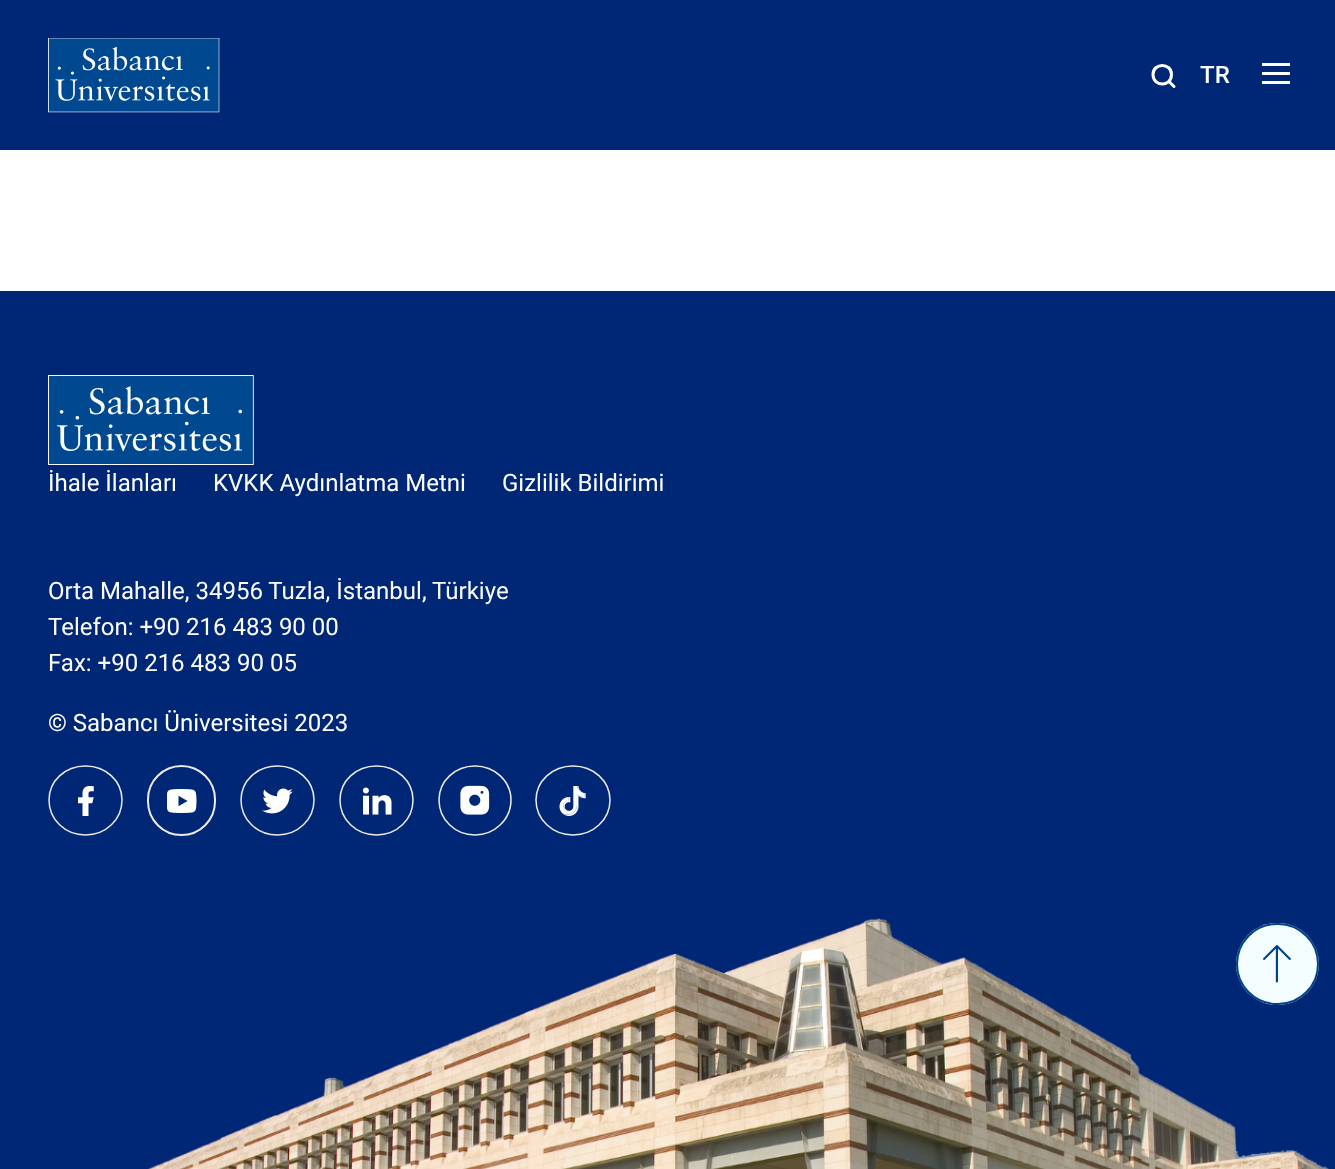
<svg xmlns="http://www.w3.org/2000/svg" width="1335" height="1169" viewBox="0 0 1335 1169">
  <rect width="100%" height="100%" fill="#ffffff"/>
  <rect x="0" y="0" width="1335" height="150" fill="#002776"/>
  <image x="48" y="38" width="172" height="75" href="img1.png"/>
  <path d="M1174 86.5L1169 81.5M1171.5 74.5C1171.5 62.5 1153 62.5 1153 74.5C1153 87 1171.5 87 1171.5 74.5Z" fill="none" stroke="#ffffff" stroke-width="3" stroke-linecap="round" stroke-linejoin="round"/>
  <text x="1200" y="83" font-family="Roboto" font-size="24" font-weight="500" fill="#ffffff">TR</text>
  <rect x="1262" y="63" width="28" height="3" fill="#ffffff"/>
  <rect x="1262" y="72" width="28" height="3" fill="#ffffff"/>
  <rect x="1262" y="81" width="28" height="3" fill="#ffffff"/>
  <rect x="0" y="291" width="1335" height="878" fill="#002776"/>
  <image x="48" y="375" width="206" height="90" href="img2.png"/>
  <text x="48" y="491" font-family="Roboto" font-size="24" fill="#ffffff">İhale İlanları</text>
  <text x="213" y="491" font-family="Roboto" font-size="24" fill="#ffffff">KVKK Aydınlatma Metni</text>
  <text x="502" y="491" font-family="Roboto" font-size="24" fill="#ffffff">Gizlilik Bildirimi</text>
  <text x="48" y="599" font-family="Roboto" font-size="24" fill="#ffffff">Orta Mahalle, 34956 Tuzla, İstanbul, Türkiye</text>
  <text x="48" y="635" font-family="Roboto" font-size="24" fill="#ffffff">Telefon: +90 216 483 90 00</text>
  <text x="48" y="671" font-family="Roboto" font-size="24" fill="#ffffff">Fax: +90 216 483 90 05</text>
  <text x="48" y="731" font-family="Roboto" font-size="24" fill="#ffffff">© Sabancı Üniversitesi 2023</text>
  <path d="M85.5 766C106 766 122 781 122 800C122 819.5 106 835 85.5 835C65 835 49 819.5 49 800C49 781 65 766 85.5 766Z" fill="none" stroke="#ebebeb" stroke-width="1.5"/>
  <image x="78" y="786" width="16" height="30" href="img3.png"/>
  <rect x="148" y="766" width="67" height="69" rx="33.5" fill="none" stroke="#ebebeb" stroke-width="2"/>
  <image x="167" y="789" width="30" height="24" href="img4.png"/>
  <path d="M277.5 766C298 766 314 781 314 800C314 819.5 298 835 277.5 835C257 835 241 819.5 241 800C241 781 257 766 277.5 766Z" fill="none" stroke="#ebebeb" stroke-width="1.5"/>
  <image x="262" y="788" width="31" height="26" href="img5.png"/>
  <path d="M376.5 766C397 766 413 781 413 800C413 819.5 397 835 376.5 835C356 835 340 819.5 340 800C340 781 356 766 376.5 766Z" fill="none" stroke="#ebebeb" stroke-width="1.5"/>
  <image x="362" y="787" width="30" height="28" href="img6.png"/>
  <path d="M475 766C494.5 766 511 781 511 800C511 819.5 494.5 835 475 835C455 835 439 819.5 439 800C439 781 455 766 475 766Z" fill="none" stroke="#ebebeb" stroke-width="1.5"/>
  <image x="460" y="785" width="30" height="30" href="img7.png"/>
  <path d="M573 766C593.5 766 610 781 610 800C610 819.5 593.5 835 573 835C552.5 835 536 819.5 536 800C536 781 552.5 766 573 766Z" fill="none" stroke="#ebebeb" stroke-width="1.5"/>
  <image x="559" y="786" width="27" height="30" href="img8.png"/>
  <image x="148" y="918" width="1181" height="251" href="img9.png"/>
  <rect x="1236" y="923" width="83" height="82" rx="41" fill="#f3fdff"/>
  <image x="1263" y="945" width="28" height="38" href="img10.png"/>
  <rect x="1237" y="924" width="81" height="80" rx="40" fill="none" stroke="#004288" stroke-width="2"/>
</svg>
